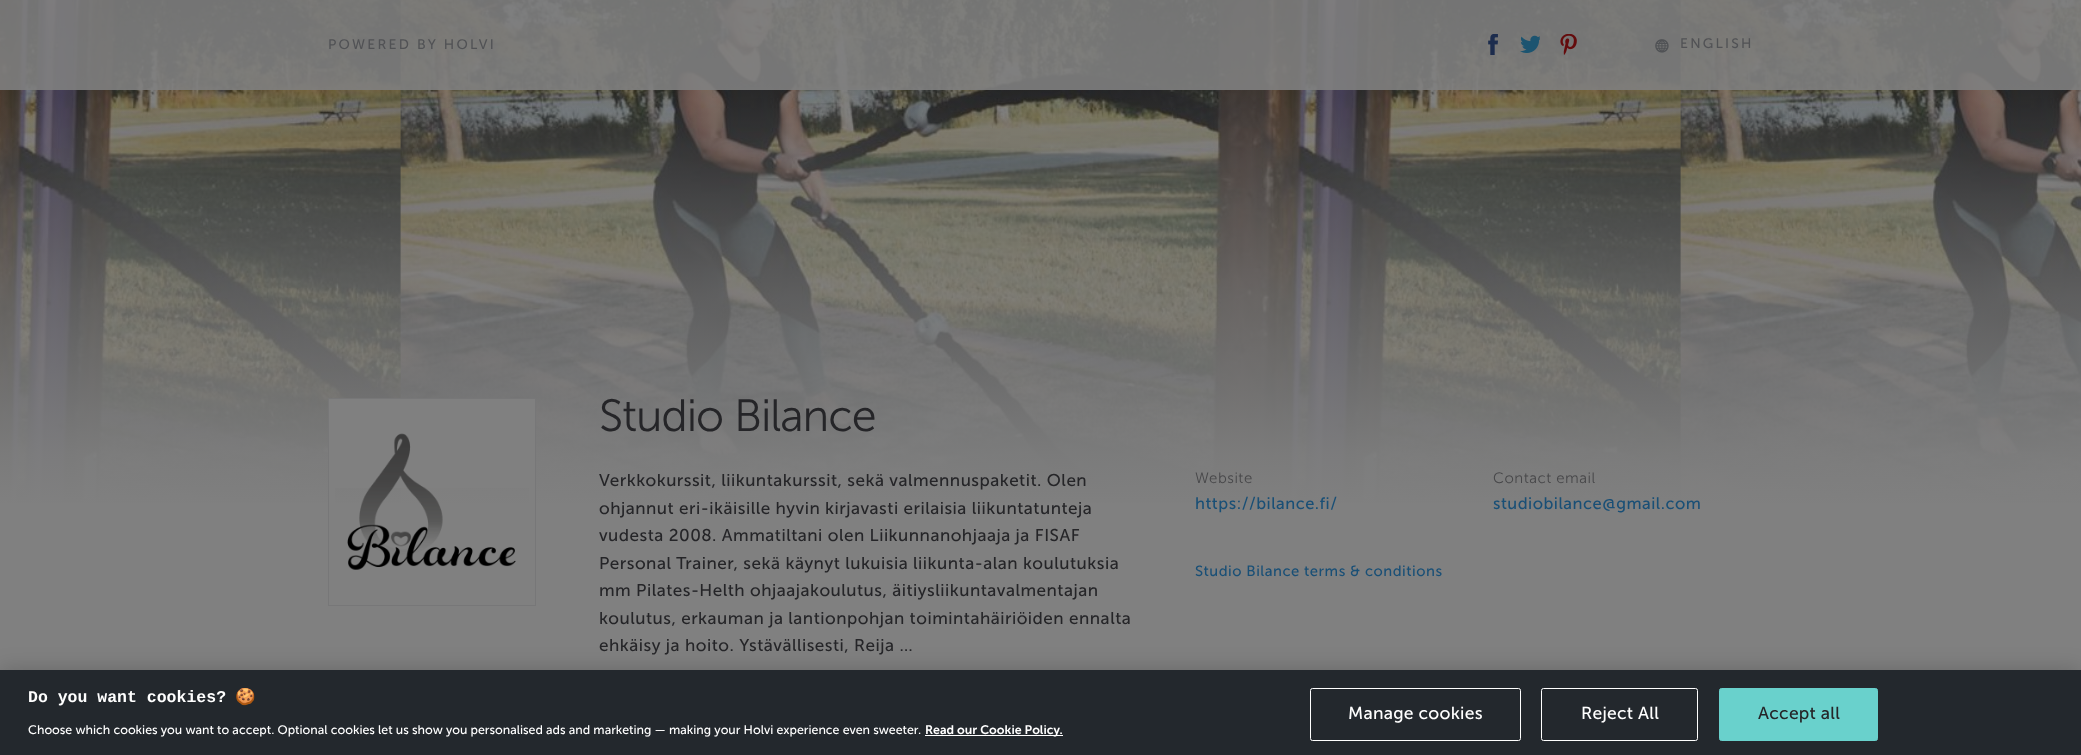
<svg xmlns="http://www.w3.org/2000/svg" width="2081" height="755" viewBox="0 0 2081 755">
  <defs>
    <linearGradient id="g1" gradientUnits="userSpaceOnUse" x1="1041" y1="0" x2="1041" y2="510"><stop offset="0" stop-color="#808080" stop-opacity="0"/><stop offset="0.4" stop-color="#808080" stop-opacity="0.5"/><stop offset="0.58" stop-color="#808080" stop-opacity="0.7"/><stop offset="0.8" stop-color="#808080" stop-opacity="0.88"/><stop offset="0.89" stop-color="#808080" stop-opacity="0.95"/><stop offset="1" stop-color="#808080"/></linearGradient>
    <filter id="blur1" x="-50%" y="-200%" width="200%" height="500%"><feGaussianBlur stdDeviation="11"/></filter>
    <clipPath id="clip1"><rect x="28" y="688" width="1117" height="52"/></clipPath>
  </defs>
  <rect width="100%" height="100%" fill="#808080"/>
  <image x="0" y="0" width="2081" height="503" href="img1.png"/>
  <rect x="0" y="9" width="2081" height="494" fill="url(#g1)"/>
  <rect x="0" y="0" width="2081" height="90" fill="#808080" fill-opacity="0.9"/>
  <text x="328" y="49" font-family="Museo Sans" font-size="13.75" letter-spacing="2.25" fill="#515255">POWERED BY HOLVI</text>
  <image x="1488" y="34" width="10" height="21" href="img2.png"/>
  <image x="1520" y="35" width="20" height="18" href="img3.png"/>
  <image x="1560" y="34" width="17" height="21" href="img4.png"/>
  <image x="1655" y="39" width="14" height="14" href="img5.png"/>
  <text x="1680" y="48" font-family="Museo Sans" font-size="13.75" letter-spacing="2.25" fill="#515255">ENGLISH</text>
  <rect x="328.5" y="398.5" width="207" height="207" fill="none" stroke="#777778"/>
  <rect x="335" y="405" width="194" height="83" fill="#808080"/>
  <image x="347" y="433" width="169" height="137" href="img6.png"/>
  <rect x="332" y="402" width="200" height="200" fill="none" stroke="#808080" stroke-width="6"/>
  <text x="599" y="431" font-family="Museo Sans" font-size="45" font-weight="300" letter-spacing="-1.1" fill="#252528">Studio Bilance</text>
  <text x="599" y="486" font-family="Museo Sans" font-size="17.1" letter-spacing="0.5" fill="#252528">Verkkokurssit, liikuntakurssit, sekä valmennuspaketit. Olen</text>
  <text x="599" y="514" font-family="Museo Sans" font-size="17.1" letter-spacing="0.5" fill="#252528">ohjannut eri-ikäisille hyvin kirjavasti erilaisia liikuntatunteja</text>
  <text x="599" y="541" font-family="Museo Sans" font-size="17.1" letter-spacing="0.5" fill="#252528">vudesta 2008. Ammatiltani olen Liikunnanohjaaja ja FISAF</text>
  <text x="599" y="569" font-family="Museo Sans" font-size="17.1" letter-spacing="0.5" fill="#252528">Personal Trainer, sekä käynyt lukuisia liikunta-alan koulutuksia</text>
  <text x="599" y="596" font-family="Museo Sans" font-size="17.1" letter-spacing="0.5" fill="#252528">mm Pilates-Helth ohjaajakoulutus, äitiysliikuntavalmentajan</text>
  <text x="599" y="624" font-family="Museo Sans" font-size="17.1" letter-spacing="0.5" fill="#252528">koulutus, erkauman ja lantionpohjan toimintahäiriöiden ennalta</text>
  <text x="599" y="651" font-family="Museo Sans" font-size="17.1" letter-spacing="0.5" fill="#252528">ehkäisy ja hoito. Ystävällisesti, Reija …</text>
  <text x="1195" y="483" font-family="Museo Sans" font-size="15" font-weight="300" letter-spacing="0.5" fill="#48484a">Website</text>
  <text x="1195" y="509" font-family="Museo Sans" font-size="16.5" letter-spacing="0.5" fill="#194f76">https://bilance.fi/</text>
  <text x="1493" y="483" font-family="Museo Sans" font-size="15" font-weight="300" letter-spacing="0.5" fill="#48484a">Contact email</text>
  <text x="1493" y="509" font-family="Museo Sans" font-size="16.5" letter-spacing="0.5" fill="#194f76">studiobilance@gmail.com</text>
  <text x="1195" y="576" font-family="Museo Sans" font-size="14.8" letter-spacing="0.5" fill="#194f76">Studio Bilance terms &amp; conditions</text>
  <rect x="0" y="670" width="2081" height="85" fill="#000000" fill-opacity="0.2" filter="url(#blur1)"/>
  <rect x="0" y="670" width="2081" height="85" fill="#23282d"/>
  <text x="28" y="702" font-family="Liberation Mono" font-size="16.5" font-weight="bold" fill="#ffffff">Do you want cookies?</text>
  <g clip-path="url(#clip1)">
    <text x="235" y="702" font-family="Noto Color Emoji" font-size="16.5" font-weight="bold" fill="#ffffff">🍪</text>
  </g>
  <text x="28" y="734" font-family="Museo Sans" font-size="12.38" fill="#ffffff">Choose which cookies you want to accept. Optional cookies let us show you personalised ads and marketing — making your Holvi experience even sweeter.</text>
  <rect x="925" y="735" width="138" height="1" fill="#ffffff"/>
  <text x="925" y="734" font-family="Museo Sans" font-size="12.38" font-weight="600" fill="#ffffff">Read our Cookie Policy.</text>
  <rect x="1310.5" y="688.5" width="210" height="52" rx="2" fill="none" stroke="#ffffff"/>
  <text x="1348" y="719" font-family="Museo Sans" font-size="17.5" letter-spacing="0.25" fill="#ffffff">Manage cookies</text>
  <rect x="1541.5" y="688.5" width="156" height="52" rx="2" fill="none" stroke="#ffffff"/>
  <text x="1581" y="719" font-family="Museo Sans" font-size="17.5" letter-spacing="0.25" fill="#ffffff">Reject All</text>
  <rect x="1719.5" y="688.5" width="158" height="52" rx="2" fill="#69d1cc" stroke="#69d1cc"/>
  <text x="1758" y="719" font-family="Museo Sans" font-size="17.5" letter-spacing="0.25" fill="#252528">Accept all</text>
</svg>
